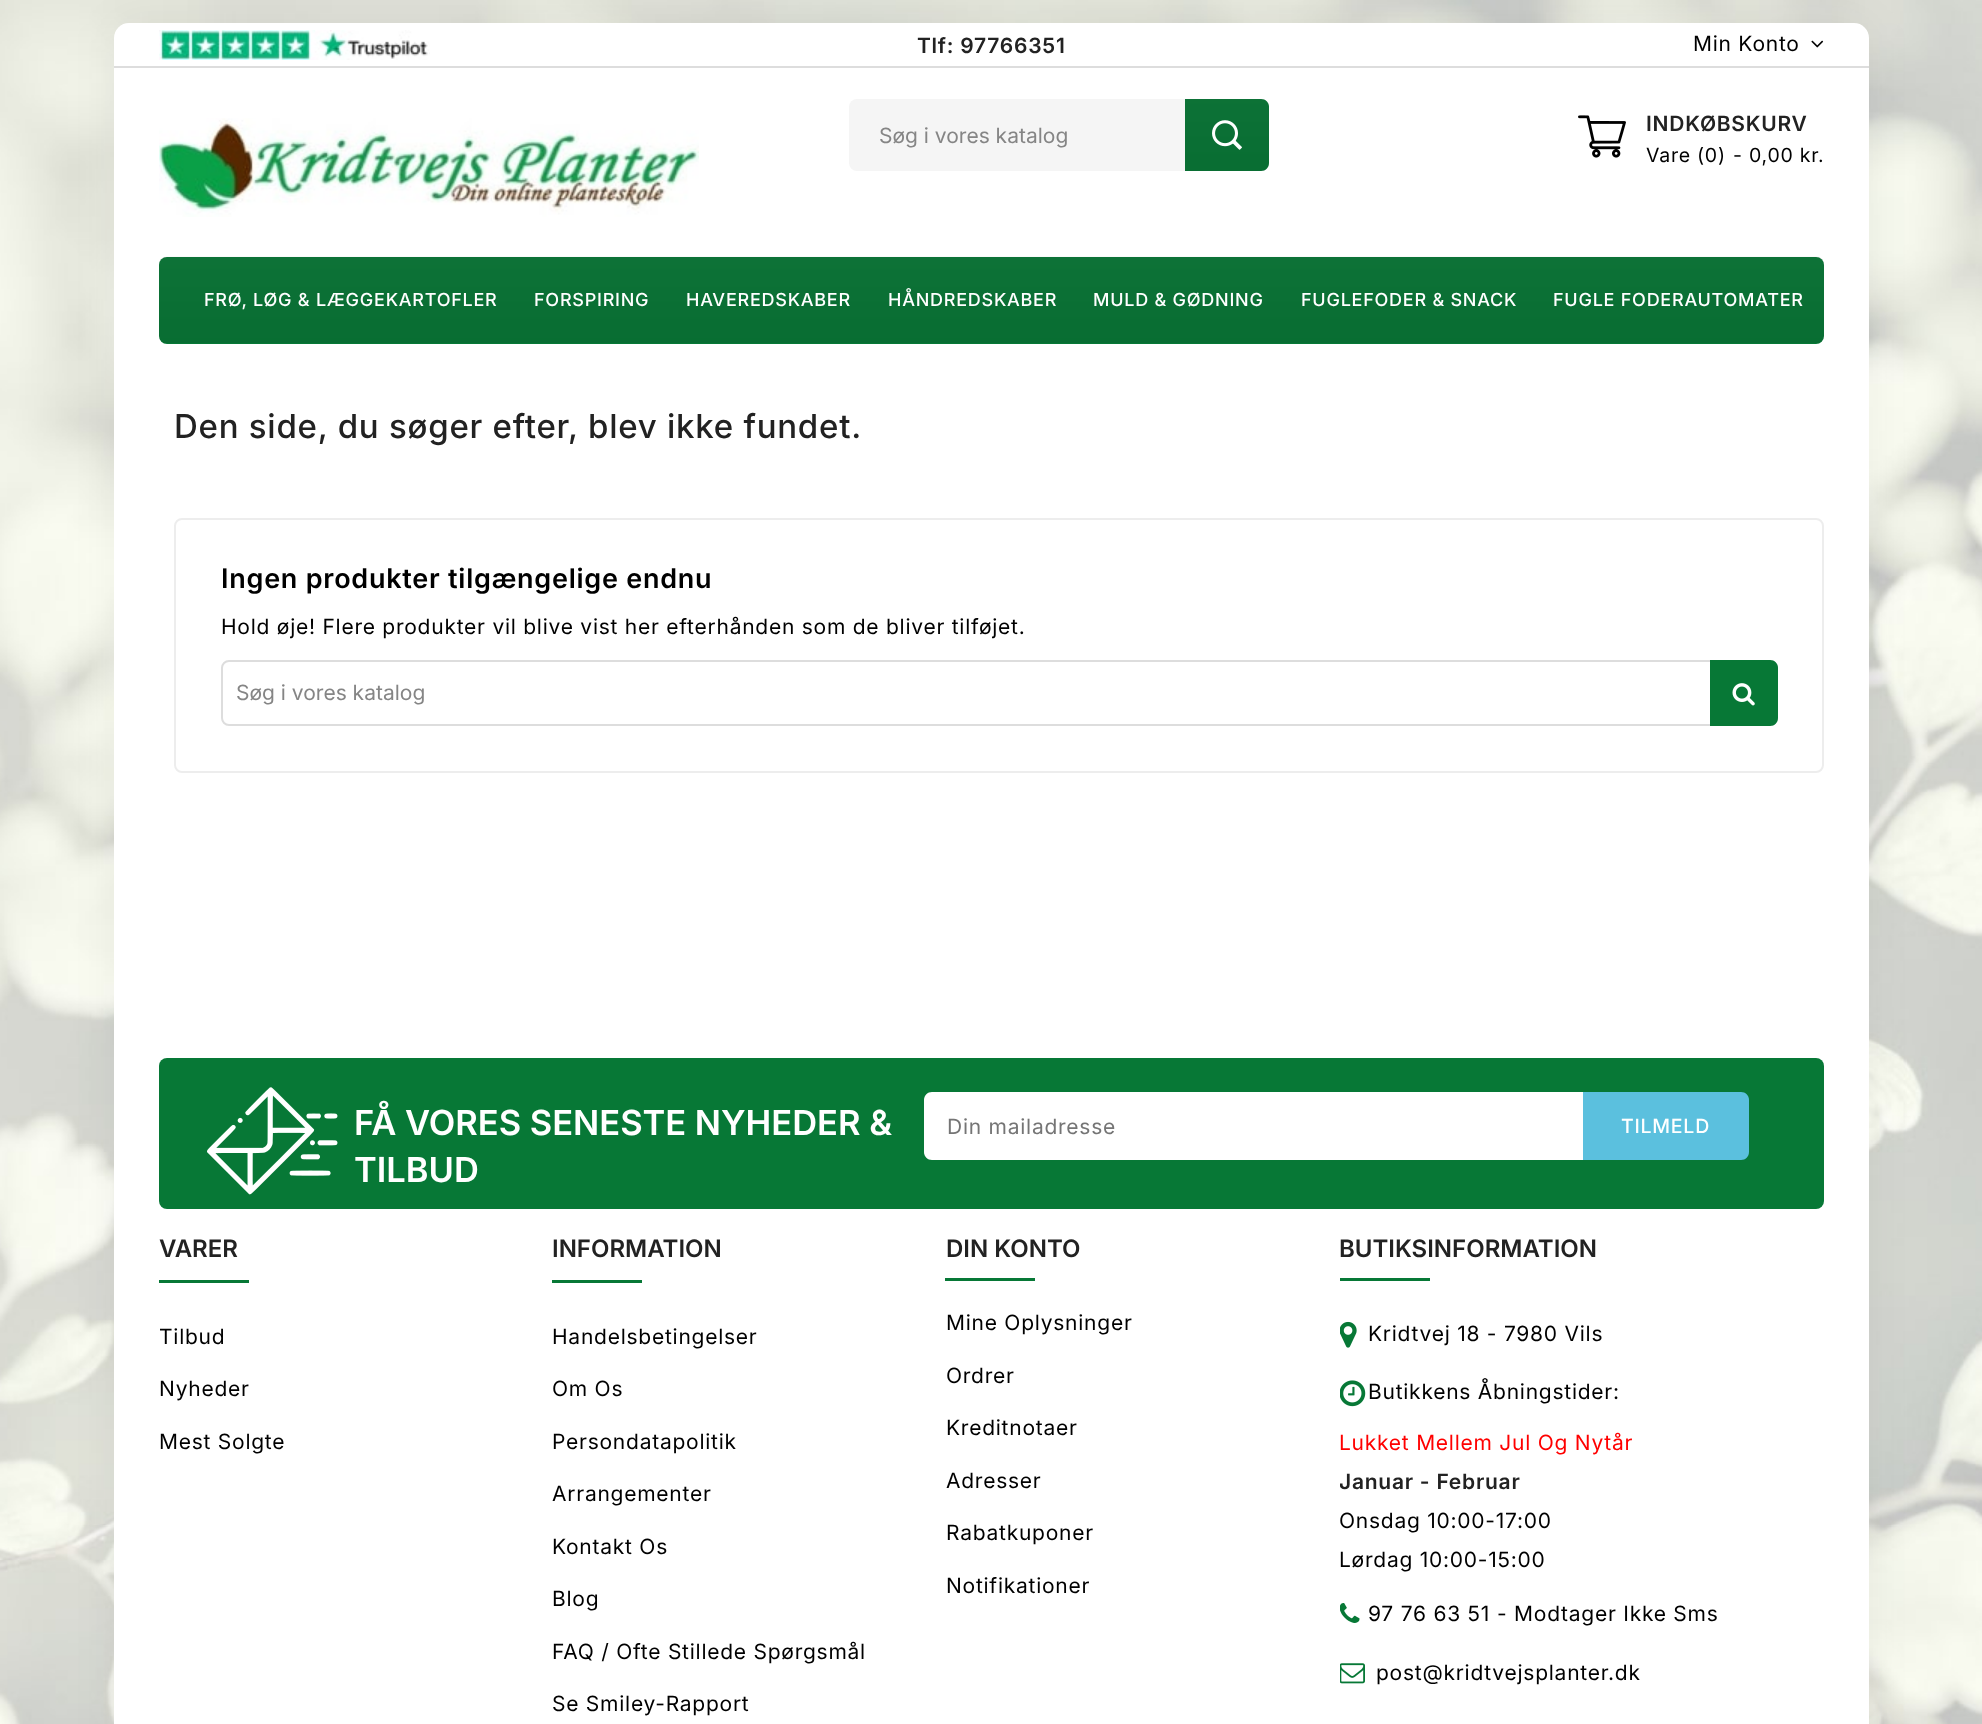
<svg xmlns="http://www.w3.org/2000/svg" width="1982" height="1724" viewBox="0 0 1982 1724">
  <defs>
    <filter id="blur1" x="-50%" y="-200%" width="200%" height="500%"><feGaussianBlur stdDeviation="22"/></filter>
    <clipPath id="clip1"><rect x="1340" y="1373" width="382" height="207"/></clipPath>
  </defs>
  <rect width="100%" height="100%" fill="#ffffff"/>
  <image x="0" y="0" width="1982" height="1724" href="img1.png"/>
  <rect x="114" y="23" width="1755" height="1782" rx="15" fill="#000000" fill-opacity="0.05" filter="url(#blur1)"/>
  <rect x="114" y="23" width="1755" height="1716" rx="15" fill="#ffffff"/>
  <rect x="114" y="66" width="1755" height="2" fill="#dddddd"/>
  <image x="159" y="30" width="271" height="30" href="img2.png"/>
  <text x="917" y="53" font-family="Inter" font-size="21" font-weight="600" letter-spacing="0.75" fill="#222222">Tlf: 97766351</text>
  <text x="1693" y="51" font-family="Inter" font-size="21" letter-spacing="0.75" fill="#000000">Min Konto</text>
  <image x="1811" y="40" width="13" height="8" href="img3.png"/>
  <image x="159" y="118" width="540" height="99" href="img4.png"/>
  <rect x="849" y="99" width="420" height="72" rx="8" fill="#f5f5f5"/>
  <text x="879" y="143" font-family="Inter" font-size="21" fill="#858585">Søg i vores katalog</text>
  <path d="M1185 99H1261C1265.5 99 1269 102.5 1269 107V163C1269 167.5 1265.5 171 1261 171H1185Z" fill="#077836"/>
  <image x="1185" y="99" width="84" height="72" href="img5.png"/>
  <image x="1212" y="120" width="30" height="30" href="img6.png"/>
  <image x="1578" y="115" width="48" height="43" href="img7.png"/>
  <text x="1646" y="131" font-family="Inter" font-size="21" font-weight="600" letter-spacing="0.75" fill="#222222">INDKØBSKURV</text>
  <text x="1646" y="162" font-family="Inter" font-size="19.5" letter-spacing="0.75" fill="#000000">Vare</text>
  <text x="1697" y="162" font-family="Inter" font-size="19.5" letter-spacing="0.75" fill="#000000">(0)</text>
  <text x="1733" y="162" font-family="Inter" font-size="19.5" letter-spacing="0.75" fill="#000000">- 0,00 kr.</text>
  <rect x="159" y="257" width="1665" height="87" rx="8" fill="#077836"/>
  <image x="159" y="256" width="1665" height="87" href="img8.png"/>
  <text x="204" y="306" font-family="Inter" font-size="18" font-weight="500" letter-spacing="0.75" fill="#ffffff">FRØ, LØG &amp; LÆGGEKARTOFLER</text>
  <text x="534" y="306" font-family="Inter" font-size="18" font-weight="500" letter-spacing="0.75" fill="#ffffff">FORSPIRING</text>
  <text x="686" y="306" font-family="Inter" font-size="18" font-weight="500" letter-spacing="0.75" fill="#ffffff">HAVEREDSKABER</text>
  <text x="888" y="306" font-family="Inter" font-size="18" font-weight="500" letter-spacing="0.75" fill="#ffffff">HÅNDREDSKABER</text>
  <text x="1093" y="306" font-family="Inter" font-size="18" font-weight="500" letter-spacing="0.75" fill="#ffffff">MULD &amp; GØDNING</text>
  <text x="1301" y="306" font-family="Inter" font-size="18" font-weight="500" letter-spacing="0.75" fill="#ffffff">FUGLEFODER &amp; SNACK</text>
  <text x="1553" y="306" font-family="Inter" font-size="18" font-weight="500" letter-spacing="0.75" fill="#ffffff">FUGLE FODERAUTOMATER</text>
  <text x="174" y="438" font-family="Inter" font-size="33" font-weight="500" letter-spacing="0.75" fill="#222222">Den side, du søger efter, blev ikke fundet.</text>
  <rect x="175" y="519" width="1648" height="253" rx="7" fill="none" stroke="#ededed" stroke-width="2"/>
  <text x="221" y="588" font-family="Inter" font-size="27" font-weight="600" letter-spacing="0.75" fill="#000000">Ingen produkter tilgængelige endnu</text>
  <text x="221" y="634" font-family="Inter" font-size="21" letter-spacing="0.75" fill="#000000">Hold øje! Flere produkter vil blive vist her efterhånden som de bliver tilføjet.</text>
  <rect x="222" y="661" width="1555" height="64" rx="7" fill="none" stroke="#dddddd" stroke-width="2"/>
  <text x="236" y="700" font-family="Inter" font-size="21" fill="#858585">Søg i vores katalog</text>
  <path d="M1710 660H1770C1774.5 660 1778 663.5 1778 668V718C1778 722.5 1774.5 726 1770 726H1710Z" fill="#077836"/>
  <image x="1732" y="683" width="23" height="23" href="img9.png"/>
  <rect x="159" y="1058" width="1665" height="151" rx="8" fill="#077836"/>
  <image x="207" y="1087" width="131" height="108" href="img10.png"/>
  <text x="354" y="1135" font-family="Inter" font-size="34.5" font-weight="600" fill="#ffffff">FÅ VORES SENESTE NYHEDER &amp;</text>
  <text x="354" y="1182" font-family="Inter" font-size="34.5" font-weight="600" fill="#ffffff">TILBUD</text>
  <path d="M932 1092H1583V1160H932C927.5 1160 924 1156.5 924 1152V1100C924 1095.5 927.5 1092 932 1092Z" fill="#ffffff"/>
  <text x="947" y="1134" font-family="Inter" font-size="21" letter-spacing="0.75" fill="#757575">Din mailadresse</text>
  <path d="M1583 1092H1741C1745.5 1092 1749 1095.5 1749 1100V1152C1749 1156.5 1745.5 1160 1741 1160H1583Z" fill="#5bc0de"/>
  <text x="1621" y="1133" font-family="Inter" font-size="19.5" font-weight="500" letter-spacing="0.75" fill="#ffffff">TILMELD</text>
  <text x="159" y="1257" font-family="Inter" font-size="24" font-weight="600" fill="#222222">VARER</text>
  <rect x="159" y="1280" width="90" height="3" fill="#077836"/>
  <text x="159" y="1344" font-family="Inter" font-size="21" letter-spacing="0.75" fill="#000000">Tilbud</text>
  <text x="159" y="1396" font-family="Inter" font-size="21" letter-spacing="0.75" fill="#000000">Nyheder</text>
  <text x="159" y="1449" font-family="Inter" font-size="21" letter-spacing="0.75" fill="#000000">Mest Solgte</text>
  <text x="552" y="1257" font-family="Inter" font-size="24" font-weight="600" fill="#222222">INFORMATION</text>
  <rect x="552" y="1280" width="90" height="3" fill="#077836"/>
  <text x="552" y="1344" font-family="Inter" font-size="21" letter-spacing="0.75" fill="#000000">Handelsbetingelser</text>
  <text x="552" y="1396" font-family="Inter" font-size="21" letter-spacing="0.75" fill="#000000">Om Os</text>
  <text x="552" y="1449" font-family="Inter" font-size="21" letter-spacing="0.75" fill="#000000">Persondatapolitik</text>
  <text x="552" y="1501" font-family="Inter" font-size="21" letter-spacing="0.75" fill="#000000">Arrangementer</text>
  <text x="552" y="1554" font-family="Inter" font-size="21" letter-spacing="0.75" fill="#000000">Kontakt Os</text>
  <text x="552" y="1606" font-family="Inter" font-size="21" letter-spacing="0.75" fill="#000000">Blog</text>
  <text x="552" y="1659" font-family="Inter" font-size="21" letter-spacing="0.75" fill="#000000">FAQ / Ofte Stillede Spørgsmål</text>
  <text x="552" y="1711" font-family="Inter" font-size="21" letter-spacing="0.75" fill="#000000">Se Smiley-Rapport</text>
  <text x="946" y="1257" font-family="Inter" font-size="24" font-weight="600" fill="#222222">DIN KONTO</text>
  <rect x="945" y="1278" width="90" height="3" fill="#077836"/>
  <text x="946" y="1330" font-family="Inter" font-size="21" letter-spacing="0.75" fill="#000000">Mine Oplysninger</text>
  <text x="946" y="1383" font-family="Inter" font-size="21" letter-spacing="0.75" fill="#000000">Ordrer</text>
  <text x="946" y="1435" font-family="Inter" font-size="21" letter-spacing="0.75" fill="#000000">Kreditnotaer</text>
  <text x="946" y="1488" font-family="Inter" font-size="21" letter-spacing="0.75" fill="#000000">Adresser</text>
  <text x="946" y="1540" font-family="Inter" font-size="21" letter-spacing="0.75" fill="#000000">Rabatkuponer</text>
  <text x="946" y="1593" font-family="Inter" font-size="21" letter-spacing="0.75" fill="#000000">Notifikationer</text>
  <text x="1339" y="1257" font-family="Inter" font-size="24" font-weight="600" fill="#222222">BUTIKSINFORMATION</text>
  <rect x="1340" y="1278" width="90" height="3" fill="#077836"/>
  <image x="1340" y="1321" width="17" height="27" href="img11.png"/>
  <text x="1368" y="1341" font-family="Inter" font-size="21" letter-spacing="0.75" fill="#000000">Kridtvej 18 - 7980 Vils</text>
  <image x="1340" y="1380" width="26" height="27" href="img12.png"/>
  <text x="1368" y="1399" font-family="Inter" font-size="21" letter-spacing="0.75" fill="#000000">Butikkens Åbningstider:</text>
  <text x="1339" y="1450" font-family="Inter" font-size="21" letter-spacing="0.75" fill="#ff0000">Lukket Mellem Jul Og Nytår</text>
  <g clip-path="url(#clip1)">
    <text x="1339" y="1489" font-family="Inter" font-size="21" font-weight="600" letter-spacing="0.75" fill="#222222">Januar - Februar</text>
  </g>
  <text x="1339" y="1528" font-family="Inter" font-size="21" letter-spacing="0.75" fill="#000000">Onsdag 10:00-17:00</text>
  <text x="1339" y="1567" font-family="Inter" font-size="21" letter-spacing="0.75" fill="#000000">Lørdag 10:00-15:00</text>
  <image x="1340" y="1603" width="20" height="20" href="img13.png"/>
  <text x="1368" y="1621" font-family="Inter" font-size="21" letter-spacing="0.75" fill="#000000">97 76 63 51</text>
  <text x="1497" y="1621" font-family="Inter" font-size="21" letter-spacing="0.75" fill="#000000">- Modtager Ikke Sms</text>
  <image x="1340" y="1663" width="25" height="21" href="img14.png"/>
  <text x="1376" y="1680" font-family="Inter" font-size="21" letter-spacing="0.75" fill="#000000">post@kridtvejsplanter.dk</text>
</svg>
